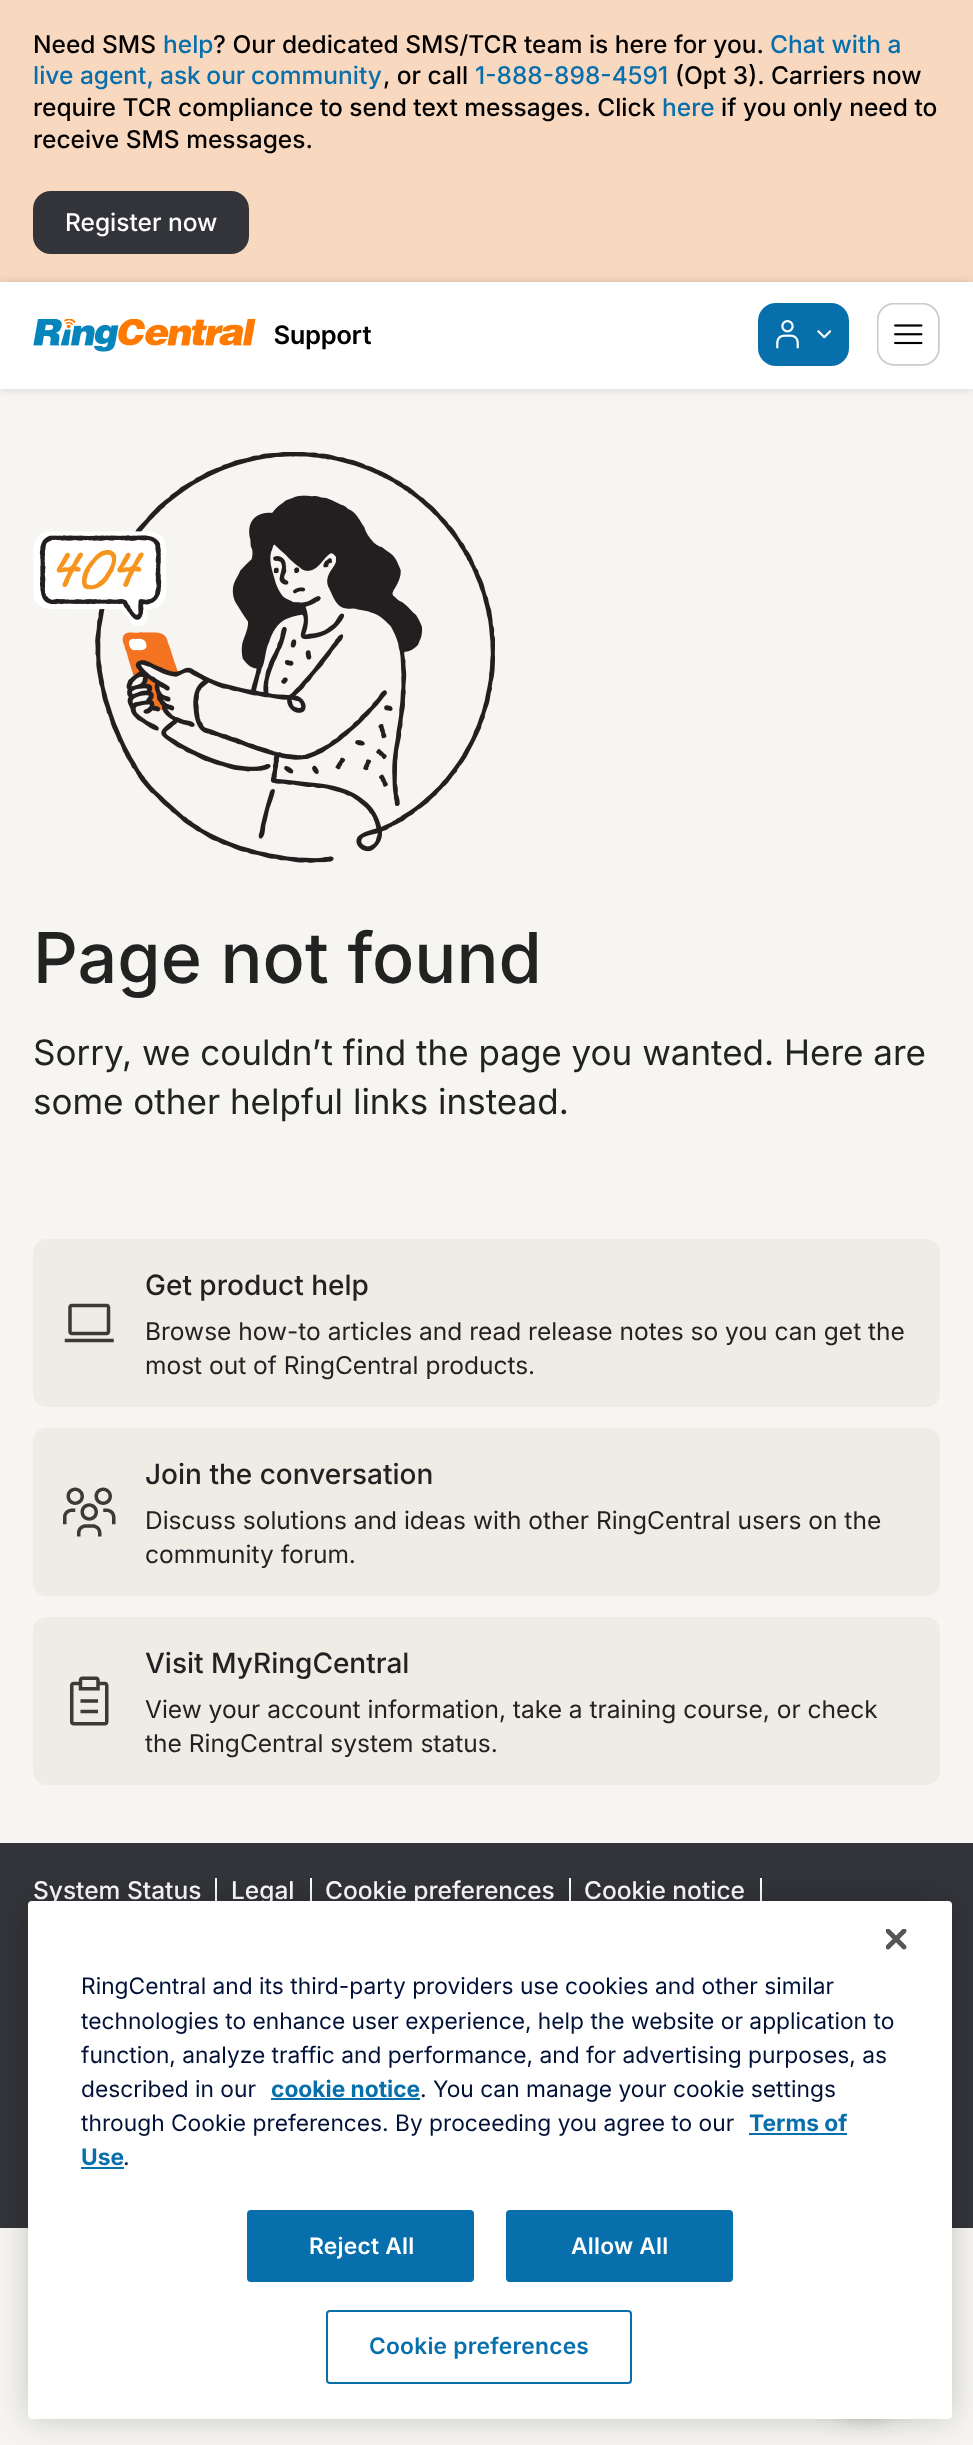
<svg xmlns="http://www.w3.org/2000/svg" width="973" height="2445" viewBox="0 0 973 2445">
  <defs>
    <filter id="blur1" x="-50%" y="-200%" width="200%" height="500%"><feGaussianBlur stdDeviation="4.5"/></filter>
    <filter id="blur2" x="-50%" y="-200%" width="200%" height="500%"><feGaussianBlur stdDeviation="16"/></filter>
    <filter id="blur3" x="-50%" y="-200%" width="200%" height="500%"><feGaussianBlur stdDeviation="9.5"/></filter>
  </defs>
  <rect width="100%" height="100%" fill="#f6f5f1"/>
  <rect x="0" y="0" width="973" height="282" fill="#f9d8c0"/>
  <text x="33" y="53" font-family="Inter" font-size="24.5" font-weight="500" fill="#000000">Need SMS</text>
  <text x="163" y="53" font-family="Inter" font-size="24.5" font-weight="500" fill="#066fac">help</text>
  <text x="213" y="53" font-family="Inter" font-size="24.5" font-weight="500" fill="#000000">? Our dedicated SMS/TCR team is here for you.</text>
  <text x="770" y="53" font-family="Inter" font-size="24.5" font-weight="500" fill="#066fac">Chat with a</text>
  <text x="33" y="84" font-family="Inter" font-size="24.5" font-weight="500" fill="#066fac">live agent,</text>
  <text x="160" y="84" word-spacing="-1" font-family="Inter" font-size="24.5" font-weight="500" fill="#066fac">ask our community</text>
  <text x="383" y="84" font-family="Inter" font-size="24.5" font-weight="500" fill="#000000">, or call</text>
  <text x="475" y="84" font-family="Inter" font-size="24.5" font-weight="500" fill="#066fac">1-888-898-4591</text>
  <text x="675" y="84" font-family="Inter" font-size="24.5" font-weight="500" fill="#000000">(Opt 3). Carriers now</text>
  <text x="33" y="116" font-family="Inter" font-size="24.5" font-weight="500" fill="#000000">require TCR compliance to send text messages. Click</text>
  <text x="662" y="116" font-family="Inter" font-size="24.5" font-weight="500" fill="#066fac">here</text>
  <text x="721" y="116" font-family="Inter" font-size="24.5" font-weight="500" fill="#000000">if you only need to</text>
  <text x="33" y="148" font-family="Inter" font-size="24.5" font-weight="500" fill="#000000">receive SMS messages.</text>
  <rect x="33" y="191" width="216" height="63" rx="18" fill="#323439"/>
  <text x="65" y="231" font-family="Inter" font-size="24.5" font-weight="500" fill="#ffffff">Register now</text>
  <rect x="0" y="282" width="973" height="107" fill="#000000" fill-opacity="0.15" filter="url(#blur1)"/>
  <rect x="0" y="282" width="973" height="107" fill="#ffffff"/>
  <image x="33" y="319" width="338" height="33" href="img1.png"/>
  <rect x="758" y="303" width="91" height="63" rx="18" fill="#066fac"/>
  <image x="776" y="320" width="23" height="29" href="img2.png"/>
  <image x="817" y="330" width="14" height="9" href="img3.png"/>
  <image x="877" y="303" width="63" height="63" href="img4.png"/>
  <image x="33" y="452" width="462" height="411" href="img5.png"/>
  <text x="33" y="983" font-family="Inter" font-size="70" font-weight="500" fill="#222222">Page not found</text>
  <text x="33" y="1065" font-family="Inter" font-size="35" fill="#222222">Sorry, we couldn’t find the page you wanted. Here are</text>
  <text x="33" y="1114" font-family="Inter" font-size="35" fill="#222222">some other helpful links instead.</text>
  <rect x="33" y="1239" width="907" height="168" rx="14" fill="#eeece5"/>
  <image x="64" y="1303" width="50" height="40" href="img6.png"/>
  <text x="145" y="1295" font-family="Inter" font-size="28" font-weight="500" fill="#222222">Get product help</text>
  <text x="145" y="1340" font-family="Inter" font-size="24.5" fill="#222222">Browse how-to articles and read release notes so you can get the</text>
  <text x="145" y="1374" font-family="Inter" font-size="24.5" fill="#222222">most out of RingCentral products.</text>
  <rect x="33" y="1428" width="907" height="168" rx="14" fill="#eeece5"/>
  <image x="63" y="1487" width="53" height="50" href="img7.png"/>
  <text x="145" y="1484" font-family="Inter" font-size="28" font-weight="500" fill="#222222">Join the conversation</text>
  <text x="145" y="1529" font-family="Inter" font-size="24.5" fill="#222222">Discuss solutions and ideas with other RingCentral users on the</text>
  <text x="145" y="1563" font-family="Inter" font-size="24.5" fill="#222222">community forum.</text>
  <rect x="33" y="1617" width="907" height="168" rx="14" fill="#eeece5"/>
  <image x="70" y="1676" width="39" height="50" href="img8.png"/>
  <text x="145" y="1673" font-family="Inter" font-size="28" font-weight="500" fill="#222222">Visit MyRingCentral</text>
  <text x="145" y="1718" font-family="Inter" font-size="24.5" fill="#222222">View your account information, take a training course, or check</text>
  <text x="145" y="1752" font-family="Inter" font-size="24.5" fill="#222222">the RingCentral system status.</text>
  <rect x="0" y="1843" width="973" height="385" fill="#323439"/>
  <rect x="215" y="1878" width="2" height="24" fill="#ffffff"/>
  <text x="33" y="1899" font-family="Inter" font-size="24.5" font-weight="500" fill="#ffffff">System Status</text>
  <rect x="310" y="1878" width="2" height="24" fill="#ffffff"/>
  <text x="231" y="1899" font-family="Inter" font-size="24.5" font-weight="500" fill="#ffffff">Legal</text>
  <rect x="569" y="1878" width="2" height="24" fill="#ffffff"/>
  <text x="325" y="1899" font-family="Inter" font-size="24.5" font-weight="500" fill="#ffffff">Cookie preferences</text>
  <rect x="760" y="1878" width="2" height="24" fill="#ffffff"/>
  <text x="584" y="1899" font-family="Inter" font-size="24.5" font-weight="500" fill="#ffffff">Cookie notice</text>
  <rect x="28" y="1901" width="924" height="518" rx="4" fill="#000000" fill-opacity="0.2" filter="url(#blur2)"/>
  <rect x="812" y="2317" width="105" height="105" rx="52.5" fill="#585858" fill-opacity="0.27" filter="url(#blur3)"/>
  <rect x="28" y="1901" width="924" height="518" rx="4" fill="#ffffff"/>
  <image x="886" y="1929" width="21" height="21" href="img9.png"/>
  <text x="81" y="1994" font-family="Inter" font-size="22.75" fill="#001138">RingCentral and its third-party providers use cookies and other similar</text>
  <text x="81" y="2029" font-family="Inter" font-size="22.75" fill="#001138">technologies to enhance user experience, help the website or application to</text>
  <text x="81" y="2063" font-family="Inter" font-size="22.75" fill="#001138">function, analyze traffic and performance, and for advertising purposes, as</text>
  <text x="81" y="2097" font-family="Inter" font-size="22.75" fill="#001138">described in our</text>
  <text x="271" y="2097" font-family="Inter" font-size="22.75" font-weight="bold" fill="#066fac">cookie notice</text>
  <rect x="271" y="2098" width="149" height="2" fill="#066fac"/>
  <text x="420" y="2097" font-family="Inter" font-size="22.75" fill="#001138">. You can manage your cookie settings</text>
  <text x="81" y="2131" font-family="Inter" font-size="22.75" fill="#001138">through Cookie preferences. By proceeding you agree to our</text>
  <text x="749" y="2131" font-family="Inter" font-size="22.75" font-weight="bold" fill="#066fac">Terms of</text>
  <rect x="749" y="2133" width="98" height="2" fill="#066fac"/>
  <text x="81" y="2165" font-family="Inter" font-size="22.75" font-weight="bold" fill="#066fac">Use</text>
  <rect x="81" y="2167" width="43" height="2" fill="#066fac"/>
  <text x="123" y="2165" font-family="Inter" font-size="22.75" fill="#001138">.</text>
  <rect x="248" y="2211" width="225" height="70" rx="3" fill="#066fac" stroke="#066fac" stroke-width="2"/>
  <text x="309" y="2254" font-family="Inter" font-size="22.75" font-weight="600" letter-spacing="0.25" fill="#ffffff">Reject All</text>
  <rect x="507" y="2211" width="225" height="70" rx="3" fill="#066fac" stroke="#066fac" stroke-width="2"/>
  <text x="571" y="2254" font-family="Inter" font-size="22.75" font-weight="600" letter-spacing="0.25" fill="#ffffff">Allow All</text>
  <rect x="327" y="2311" width="304" height="72" rx="3" fill="none" stroke="#066fac" stroke-width="2"/>
  <text x="369" y="2354" font-family="Inter" font-size="22.75" font-weight="600" letter-spacing="0.25" fill="#066fac">Cookie preferences</text>
</svg>
